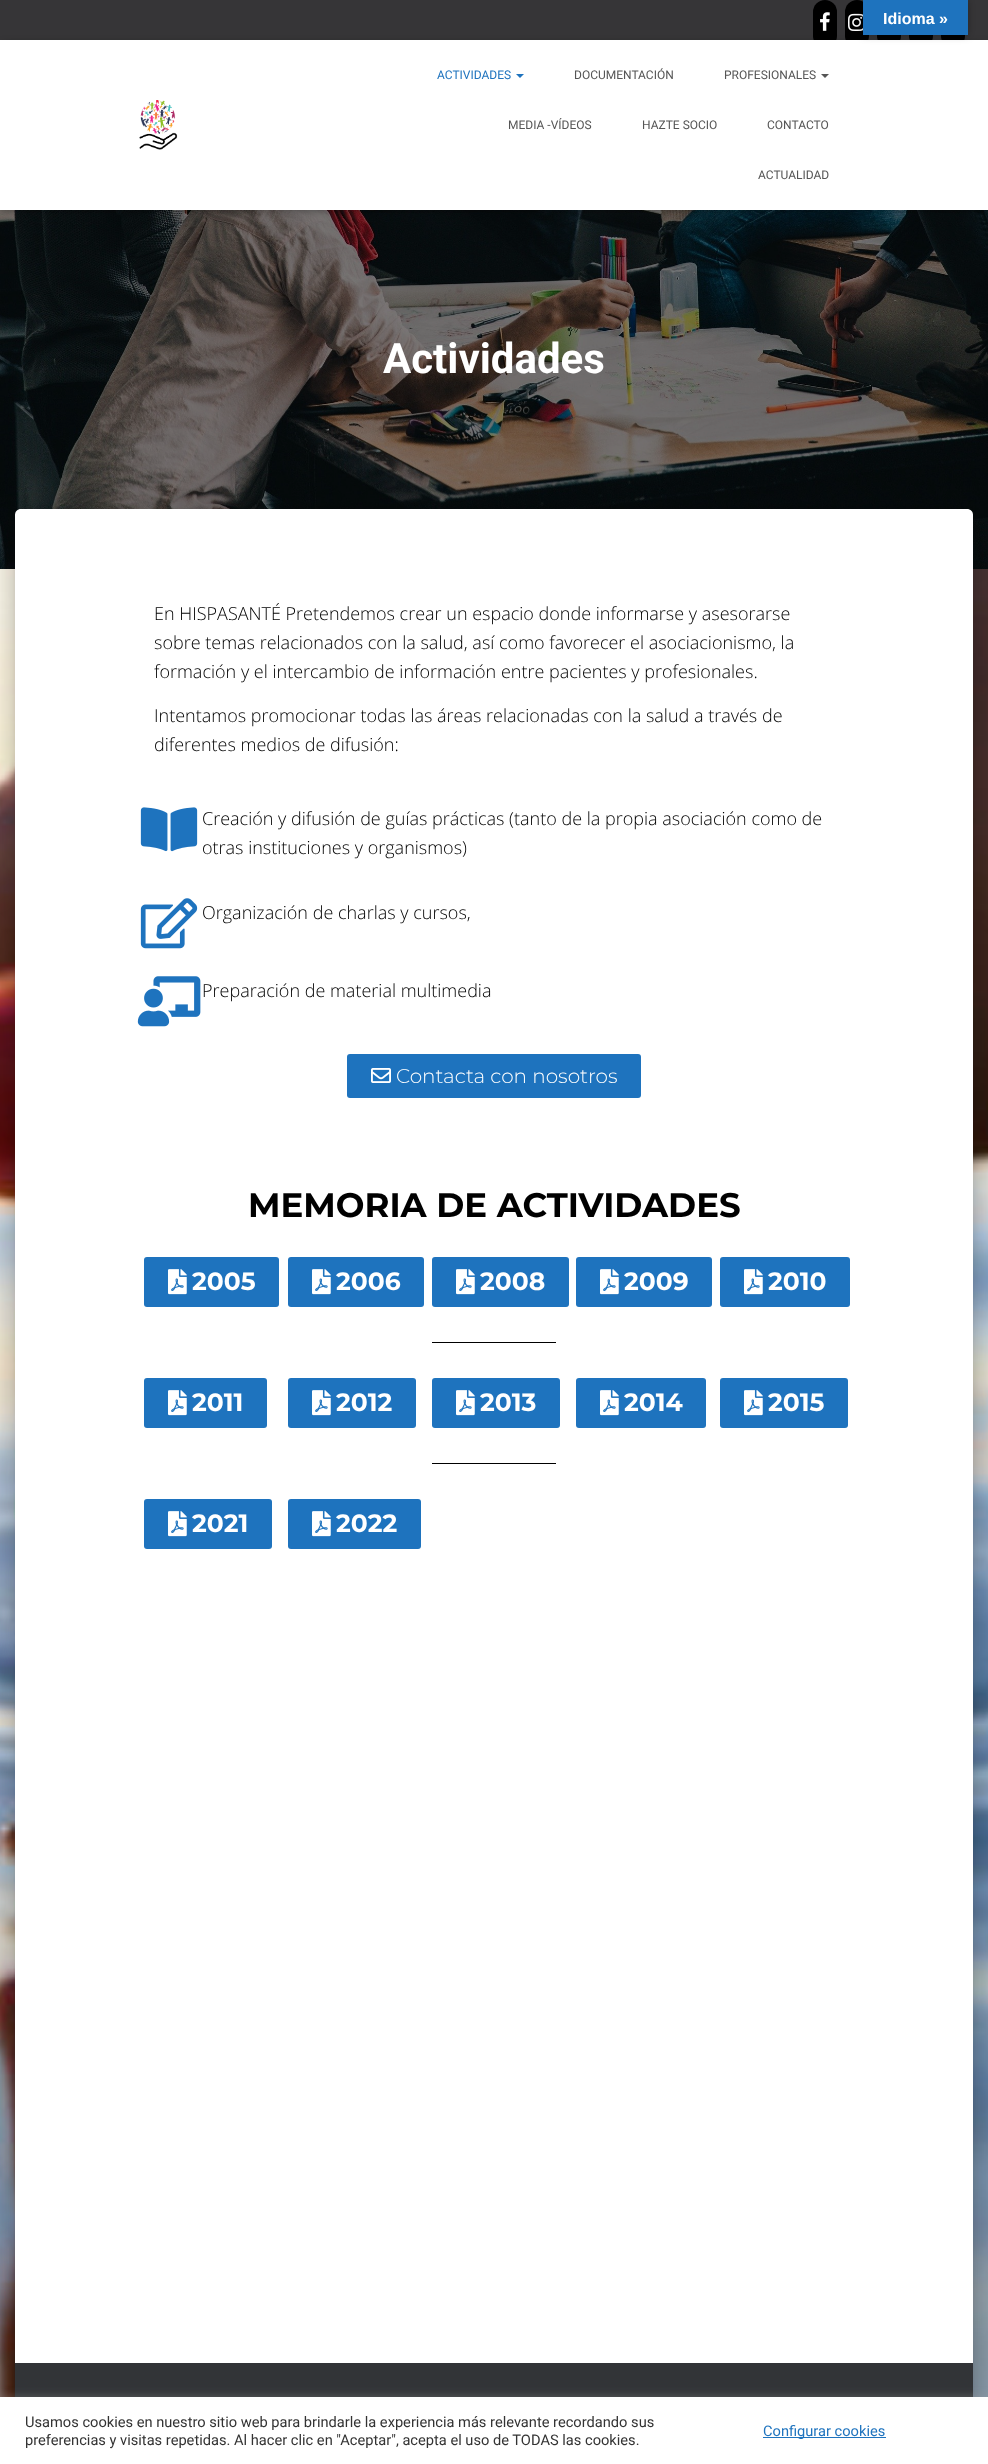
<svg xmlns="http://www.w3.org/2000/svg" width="988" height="2464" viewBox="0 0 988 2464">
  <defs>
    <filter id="blur1" x="-50%" y="-200%" width="200%" height="500%"><feGaussianBlur stdDeviation="2.5"/></filter>
    <filter id="blur2" x="-50%" y="-200%" width="200%" height="500%"><feGaussianBlur stdDeviation="5"/></filter>
    <filter id="blur3" x="-50%" y="-200%" width="200%" height="500%"><feGaussianBlur stdDeviation="4.5"/></filter>
    <filter id="blur4" x="-50%" y="-200%" width="200%" height="500%"><feGaussianBlur stdDeviation="15"/></filter>
    <filter id="blur5" x="-50%" y="-200%" width="200%" height="500%"><feGaussianBlur stdDeviation="12"/></filter>
  </defs>
  <rect width="100%" height="100%" fill="#ffffff"/>
  <image x="0" y="569" width="988" height="1828" href="img1.png"/>
  <rect x="0" y="0" width="988" height="40" fill="#363537"/>
  <rect x="845" y="0" width="24" height="48" rx="12" fill="#000000"/>
  <image x="848" y="13" width="15" height="18" href="img3.png"/>
  <rect x="877" y="0" width="24" height="48" rx="12" fill="#000000"/>
  <rect x="909" y="0" width="24" height="48" rx="12" fill="#000000"/>
  <rect x="941" y="0" width="24" height="48" rx="12" fill="#000000"/>
  <rect x="813" y="0" width="24" height="48" rx="12" fill="#000000"/>
  <image x="0" y="210" width="988" height="359" href="img5.png"/>
  <rect x="2" y="46" width="984" height="166" fill="#000000" fill-opacity="0.1" filter="url(#blur1)"/>
  <image x="820" y="12" width="10" height="19" href="img2.png"/>
  <rect x="0" y="41" width="988" height="170" fill="#000000" fill-opacity="0.12" filter="url(#blur2)"/>
  <rect x="6" y="47" width="976" height="158" fill="#000000" fill-opacity="0.42" filter="url(#blur2)"/>
  <rect x="0" y="40" width="988" height="170" fill="#ffffff"/>
  <rect x="863" y="0" width="105" height="35" fill="#000000" fill-opacity="0.3" filter="url(#blur3)"/>
  <rect x="863" y="0" width="105" height="35" fill="#1e73be"/>
  <text x="883" y="24" font-family="Liberation Sans" font-size="16" font-weight="bold" fill="#ffffff">Idioma »</text>
  <image x="139" y="100" width="39" height="50" href="img4.png"/>
  <text x="437" y="79" font-family="Roboto" font-size="12" fill="#1e73be">ACTIVIDADES</text>
  <path d="M516 74H524L520 78Z" fill="#1e73be"/>
  <text x="574" y="79" font-family="Roboto" font-size="12" fill="#555555">DOCUMENTACIÓN</text>
  <text x="724" y="79" font-family="Roboto" font-size="12" fill="#555555">PROFESIONALES</text>
  <path d="M821 74H829L825 78Z" fill="#555555"/>
  <text x="508" y="129" font-family="Roboto" font-size="12" fill="#555555">MEDIA -VÍDEOS</text>
  <text x="642" y="129" font-family="Roboto" font-size="12" fill="#555555">HAZTE SOCIO</text>
  <text x="767" y="129" font-family="Roboto" font-size="12" fill="#555555">CONTACTO</text>
  <text x="758" y="179" font-family="Roboto" font-size="12" fill="#555555">ACTUALIDAD</text>
  <text x="383" y="373" font-family="Roboto" font-size="42" font-weight="bold" fill="#ffffff">Actividades</text>
  <rect x="20" y="522" width="948" height="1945" rx="1" fill="#000000" fill-opacity="0.2" filter="url(#blur2)"/>
  <rect x="10" y="510" width="968" height="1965" rx="11" fill="#000000" fill-opacity="0.12" filter="url(#blur4)"/>
  <rect x="13" y="523" width="962" height="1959" rx="8" fill="#000000" fill-opacity="0.14" filter="url(#blur5)"/>
  <path d="M21 509H967C970.5 509 973 511.5 973 515V2464H15V515C15 511.5 17.5 509 21 509Z" fill="#ffffff"/>
  <text x="154" y="620" font-family="Open Sans" font-size="18" font-weight="300" fill="#000000">En HISPASANTÉ Pretendemos crear un espacio donde informarse y asesorarse</text>
  <text x="154" y="649" font-family="Open Sans" font-size="18" font-weight="300" fill="#000000">sobre temas relacionados con la salud, así como favorecer el asociacionismo, la</text>
  <text x="154" y="678" font-family="Open Sans" font-size="18" font-weight="300" fill="#000000">formación y el intercambio de información entre pacientes y profesionales.</text>
  <text x="154" y="722" font-family="Open Sans" font-size="18" font-weight="300" fill="#000000">Intentamos promocionar todas las áreas relacionadas con la salud a través de</text>
  <text x="154" y="751" font-family="Open Sans" font-size="18" font-weight="300" fill="#000000">diferentes medios de difusión:</text>
  <image x="140" y="807" width="58" height="45" href="img6.png"/>
  <text x="202" y="825" font-family="Open Sans" font-size="18" font-weight="300" fill="#000000">Creación y difusión de guías prácticas (tanto de la propia asociación como de</text>
  <text x="202" y="854" font-family="Open Sans" font-size="18" font-weight="300" fill="#000000">otras instituciones y organismos)</text>
  <image x="140" y="898" width="58" height="51" href="img7.png"/>
  <text x="202" y="919" font-family="Open Sans" font-size="18" font-weight="300" fill="#000000">Organización de charlas y cursos,</text>
  <image x="137" y="976" width="64" height="51" href="img8.png"/>
  <text x="202" y="997" font-family="Open Sans" font-size="18" font-weight="300" fill="#000000">Preparación de material multimedia</text>
  <rect x="347" y="1054" width="294" height="44" rx="3" fill="#1e73be"/>
  <image x="371" y="1068" width="20" height="15" href="img9.png"/>
  <text x="396" y="1083" font-family="Montserrat" font-size="20" font-weight="300" fill="#ffffff">Contacta con nosotros</text>
  <text x="248" y="1217" font-family="Montserrat" font-size="34" font-weight="bold" fill="#000000">MEMORIA DE ACTIVIDADES</text>
  <rect x="144" y="1257" width="135" height="50" rx="3" fill="#1e73be"/>
  <image x="168" y="1269" width="19" height="26" href="img10.png"/>
  <text x="192" y="1290" font-family="Montserrat" font-size="25" font-weight="bold" fill="#ffffff">2005</text>
  <rect x="288" y="1257" width="136" height="50" rx="3" fill="#1e73be"/>
  <image x="312" y="1269" width="19" height="26" href="img10.png"/>
  <text x="336" y="1290" font-family="Montserrat" font-size="25" font-weight="bold" fill="#ffffff">2006</text>
  <rect x="432" y="1257" width="137" height="50" rx="3" fill="#1e73be"/>
  <image x="456" y="1269" width="19" height="26" href="img10.png"/>
  <text x="480" y="1290" font-family="Montserrat" font-size="25" font-weight="bold" fill="#ffffff">2008</text>
  <rect x="432" y="1342" width="124" height="1" fill="#000000"/>
  <rect x="576" y="1257" width="136" height="50" rx="3" fill="#1e73be"/>
  <image x="600" y="1269" width="19" height="26" href="img10.png"/>
  <text x="624" y="1290" font-family="Montserrat" font-size="25" font-weight="bold" fill="#ffffff">2009</text>
  <rect x="720" y="1257" width="130" height="50" rx="3" fill="#1e73be"/>
  <image x="744" y="1269" width="19" height="26" href="img10.png"/>
  <text x="768" y="1290" font-family="Montserrat" font-size="25" font-weight="bold" fill="#ffffff">2010</text>
  <rect x="144" y="1378" width="123" height="50" rx="3" fill="#1e73be"/>
  <image x="168" y="1390" width="19" height="26" href="img10.png"/>
  <text x="192" y="1411" font-family="Montserrat" font-size="25" font-weight="bold" fill="#ffffff">2011</text>
  <rect x="288" y="1378" width="128" height="50" rx="3" fill="#1e73be"/>
  <image x="312" y="1390" width="19" height="26" href="img10.png"/>
  <text x="336" y="1411" font-family="Montserrat" font-size="25" font-weight="bold" fill="#ffffff">2012</text>
  <rect x="432" y="1378" width="128" height="50" rx="3" fill="#1e73be"/>
  <image x="456" y="1390" width="19" height="26" href="img10.png"/>
  <text x="480" y="1411" font-family="Montserrat" font-size="25" font-weight="bold" fill="#ffffff">2013</text>
  <rect x="432" y="1463" width="124" height="1" fill="#000000"/>
  <rect x="576" y="1378" width="130" height="50" rx="3" fill="#1e73be"/>
  <image x="600" y="1390" width="19" height="26" href="img10.png"/>
  <text x="624" y="1411" font-family="Montserrat" font-size="25" font-weight="bold" fill="#ffffff">2014</text>
  <rect x="720" y="1378" width="128" height="50" rx="3" fill="#1e73be"/>
  <image x="744" y="1390" width="19" height="26" href="img10.png"/>
  <text x="768" y="1411" font-family="Montserrat" font-size="25" font-weight="bold" fill="#ffffff">2015</text>
  <rect x="144" y="1499" width="128" height="50" rx="3" fill="#1e73be"/>
  <image x="168" y="1511" width="19" height="26" href="img10.png"/>
  <text x="192" y="1532" font-family="Montserrat" font-size="25" font-weight="bold" fill="#ffffff">2021</text>
  <rect x="288" y="1499" width="133" height="50" rx="3" fill="#1e73be"/>
  <image x="312" y="1511" width="19" height="26" href="img10.png"/>
  <text x="336" y="1532" font-family="Montserrat" font-size="25" font-weight="bold" fill="#ffffff">2022</text>
  <rect x="15" y="2363" width="958" height="34" fill="#323437"/>
  <rect x="0" y="2396" width="988" height="67" fill="#acabab" fill-opacity="0.3" filter="url(#blur2)"/>
  <rect x="0" y="2397" width="988" height="67" fill="#ffffff"/>
  <text x="25" y="2427" font-family="Roboto" font-size="14.65" fill="#333333">Usamos cookies en nuestro sitio web para brindarle la experiencia más relevante recordando sus</text>
  <text x="25" y="2445" font-family="Roboto" font-size="14.65" fill="#333333">preferencias y visitas repetidas. Al hacer clic en "Aceptar", acepta el uso de TODAS las cookies.</text>
  <rect x="763" y="2437" width="123" height="1" fill="#1e73be"/>
  <text x="763" y="2436" font-family="Roboto" font-size="14.65" fill="#1e73be">Configurar cookies</text>
</svg>
